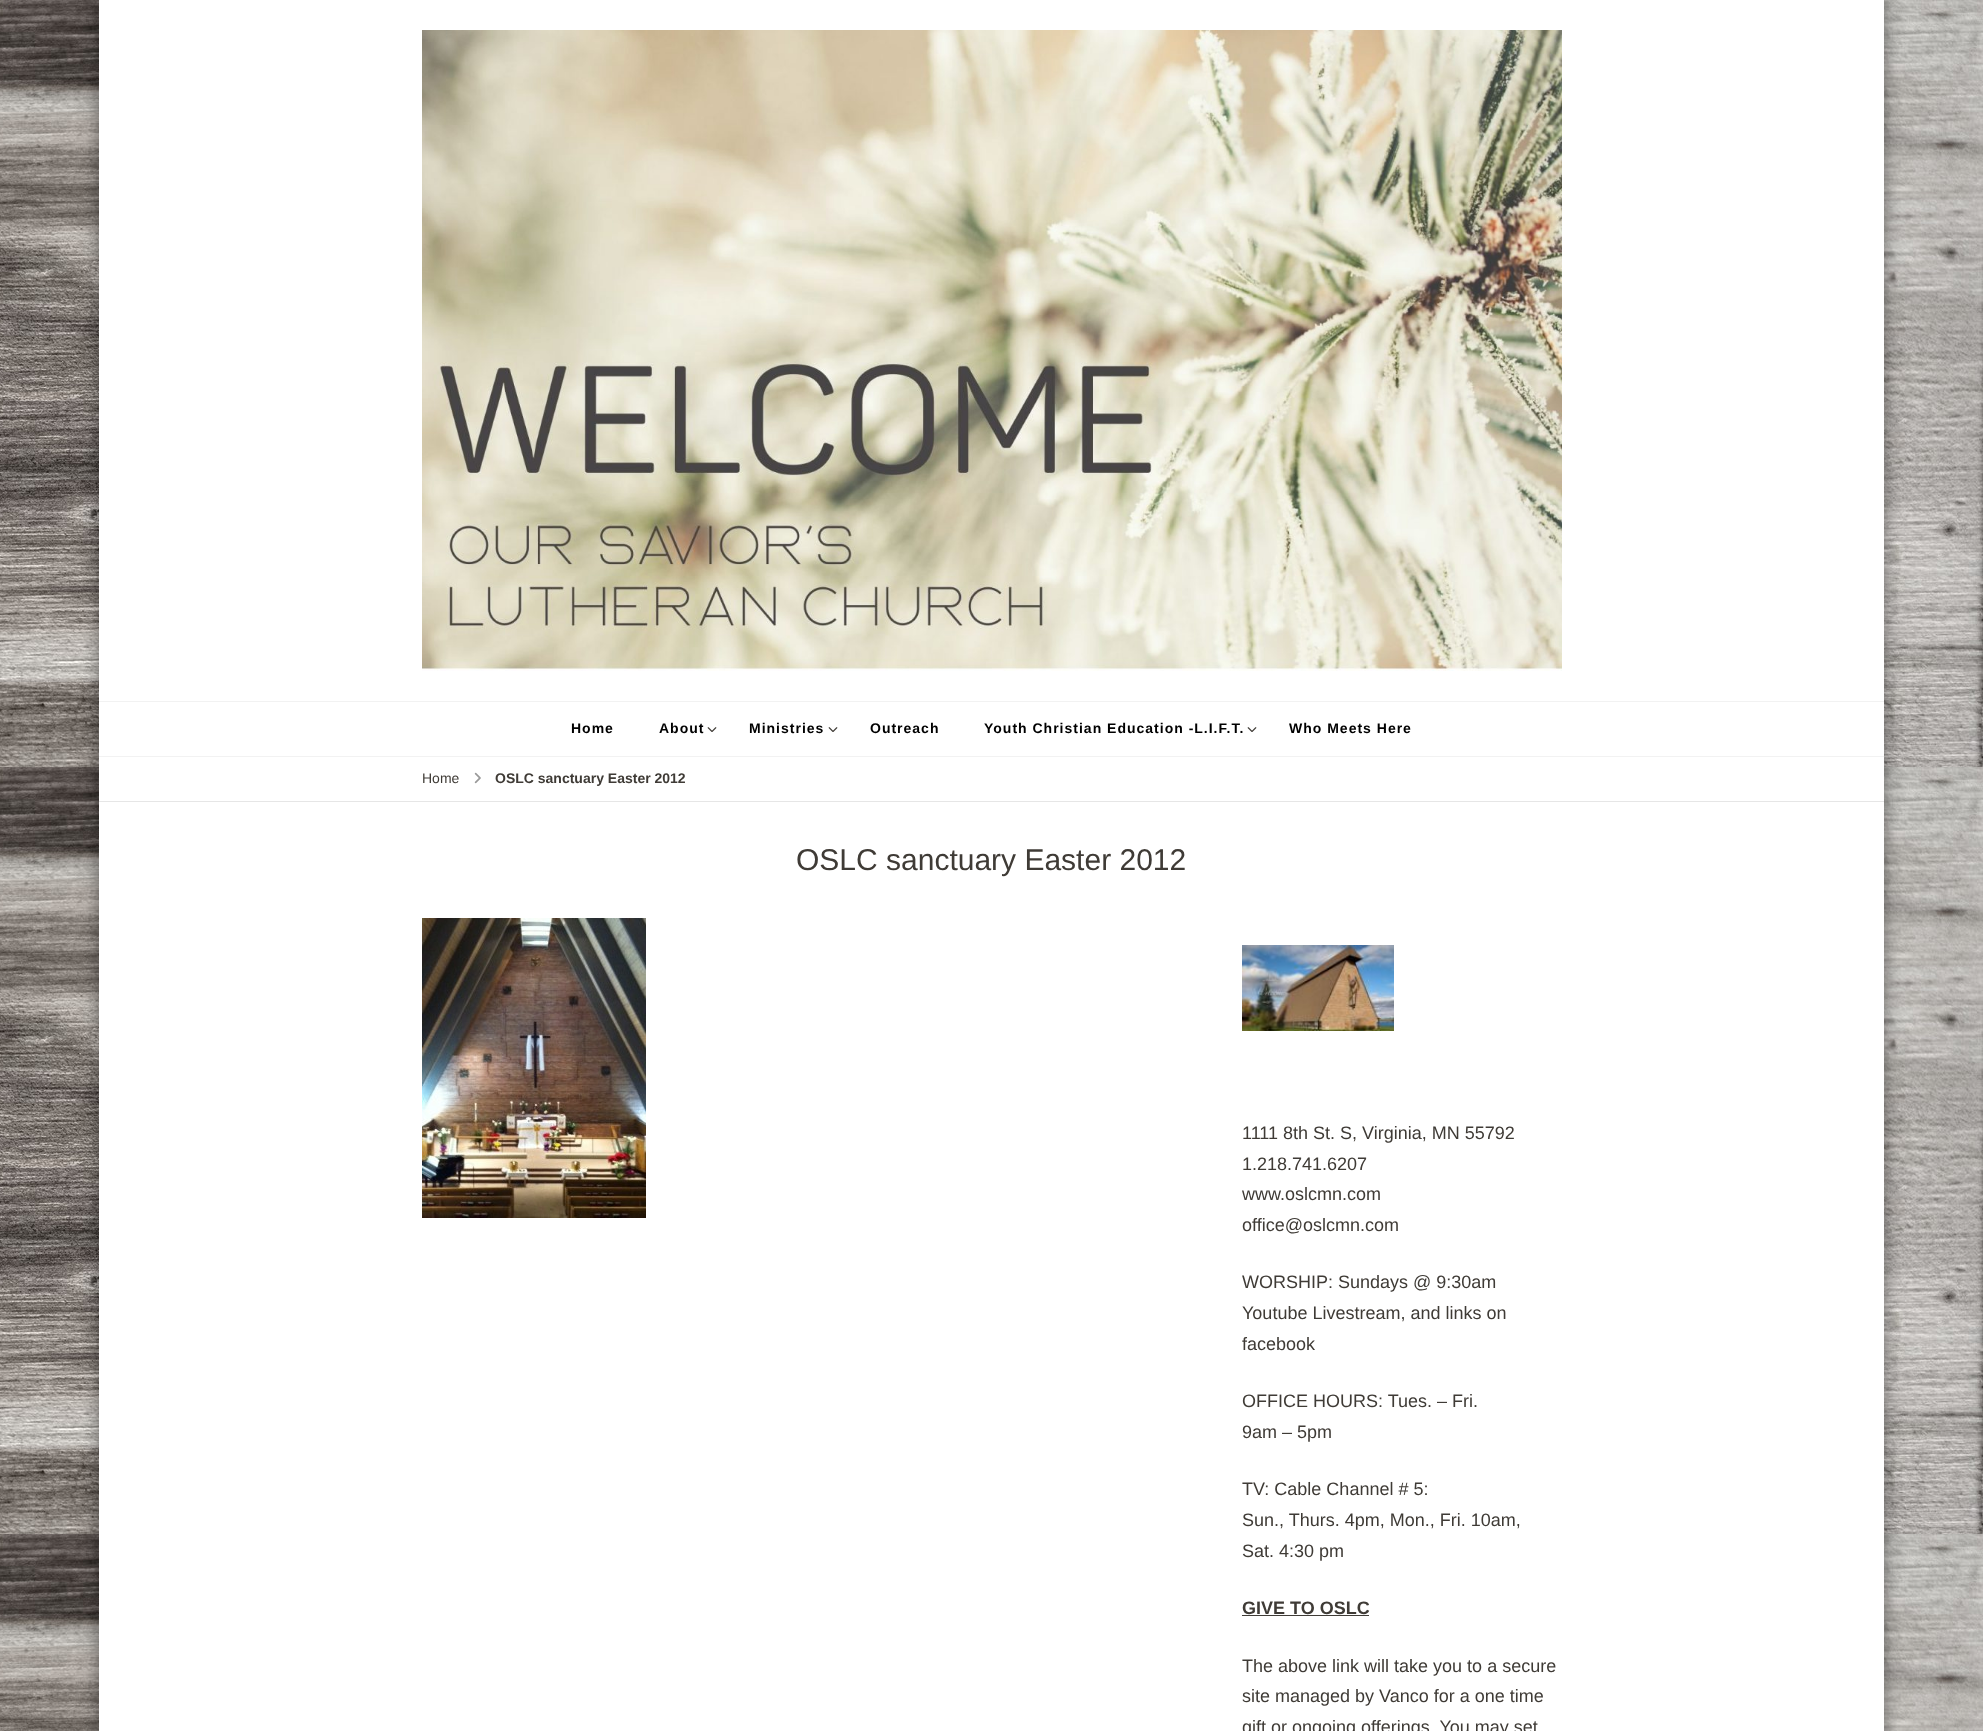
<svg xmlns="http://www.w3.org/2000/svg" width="1983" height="1731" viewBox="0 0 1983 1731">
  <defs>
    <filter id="blur1" x="-50%" y="-200%" width="200%" height="500%"><feGaussianBlur stdDeviation="10"/></filter>
  </defs>
  <rect width="100%" height="100%" fill="#ffffff"/>
  <image x="0" y="0" width="1983" height="1731" href="img1.png"/>
  <rect x="99" y="0" width="1785" height="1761" fill="#000000" fill-opacity="0.5" filter="url(#blur1)"/>
  <rect x="99" y="0" width="1785" height="1731" fill="#ffffff"/>
  <rect x="99" y="756" width="1785" height="1" fill="#f2f2f2"/>
  <image x="422" y="30" width="1140" height="641" href="img2.png"/>
  <rect x="99" y="701" width="1785" height="1" fill="#f2f2f2"/>
  <text x="571" y="733" font-family="Liberation Sans" font-size="14" font-weight="bold" letter-spacing="1" fill="#000000">Home</text>
  <text x="659" y="733" font-family="Liberation Sans" font-size="14" font-weight="bold" letter-spacing="1" fill="#000000">About</text>
  <image x="707" y="727" width="10" height="5" href="img3.png"/>
  <text x="749" y="733" font-family="Liberation Sans" font-size="14" font-weight="bold" letter-spacing="1" fill="#000000">Ministries</text>
  <image x="828" y="727" width="10" height="5" href="img3.png"/>
  <text x="870" y="733" font-family="Liberation Sans" font-size="14" font-weight="bold" letter-spacing="1" fill="#000000">Outreach</text>
  <text x="984" y="733" font-family="Liberation Sans" font-size="14" font-weight="bold" letter-spacing="1" fill="#000000">Youth Christian Education -L.I.F.T.</text>
  <image x="1247" y="727" width="10" height="5" href="img3.png"/>
  <text x="1289" y="733" font-family="Liberation Sans" font-size="14" font-weight="bold" letter-spacing="1" fill="#000000">Who Meets Here</text>
  <rect x="99" y="801" width="1785" height="1" fill="#e6e6e6"/>
  <text x="422" y="783" font-family="Liberation Sans" font-size="14" fill="#3f3b36">Home</text>
  <image x="474" y="772" width="7" height="12" href="img4.png"/>
  <text x="495" y="783" font-family="Liberation Sans" font-size="14" font-weight="bold" fill="#3f3b36">OSLC sanctuary Easter 2012</text>
  <text x="796" y="870" font-family="Liberation Sans" font-size="30" fill="#3f3b36">OSLC sanctuary Easter 2012</text>
  <image x="422" y="918" width="224" height="300" href="img5.png"/>
  <image x="1242" y="945" width="152" height="86" href="img6.png"/>
  <text x="1242" y="1139" font-family="Liberation Sans" font-size="18" fill="#3f3b36">1111 8th St. S, Virginia, MN 55792</text>
  <text x="1242" y="1170" font-family="Liberation Sans" font-size="18" fill="#3f3b36">1.218.741.6207</text>
  <text x="1242" y="1200" font-family="Liberation Sans" font-size="18" fill="#3f3b36">www.oslcmn.com</text>
  <text x="1242" y="1231" font-family="Liberation Sans" font-size="18" fill="#3f3b36">office@oslcmn.com</text>
  <text x="1242" y="1288" font-family="Liberation Sans" font-size="18" fill="#3f3b36">WORSHIP: Sundays @ 9:30am</text>
  <text x="1242" y="1319" font-family="Liberation Sans" font-size="18" fill="#3f3b36">Youtube Livestream, and links on</text>
  <text x="1242" y="1350" font-family="Liberation Sans" font-size="18" fill="#3f3b36">facebook</text>
  <text x="1242" y="1407" font-family="Liberation Sans" font-size="18" fill="#3f3b36">OFFICE HOURS: Tues. – Fri.</text>
  <text x="1242" y="1438" font-family="Liberation Sans" font-size="18" fill="#3f3b36">9am – 5pm</text>
  <text x="1242" y="1495" font-family="Liberation Sans" font-size="18" fill="#3f3b36">TV: Cable Channel # 5:</text>
  <text x="1242" y="1526" font-family="Liberation Sans" font-size="18" fill="#3f3b36">Sun., Thurs. 4pm, Mon., Fri. 10am,</text>
  <text x="1242" y="1557" font-family="Liberation Sans" font-size="18" fill="#3f3b36">Sat. 4:30 pm</text>
  <text x="1242" y="1614" font-family="Liberation Sans" font-size="18" font-weight="bold" fill="#3f3b36">GIVE TO OSLC</text>
  <rect x="1242" y="1615" width="127" height="1" fill="#3f3b36"/>
  <text x="1242" y="1672" font-family="Liberation Sans" font-size="18" fill="#3f3b36">The above link will take you to a secure</text>
  <text x="1242" y="1702" font-family="Liberation Sans" font-size="18" fill="#3f3b36">site managed by Vanco for a one time</text>
  <text x="1242" y="1733" font-family="Liberation Sans" font-size="18" fill="#3f3b36">gift or ongoing offerings. You may set</text>
</svg>
